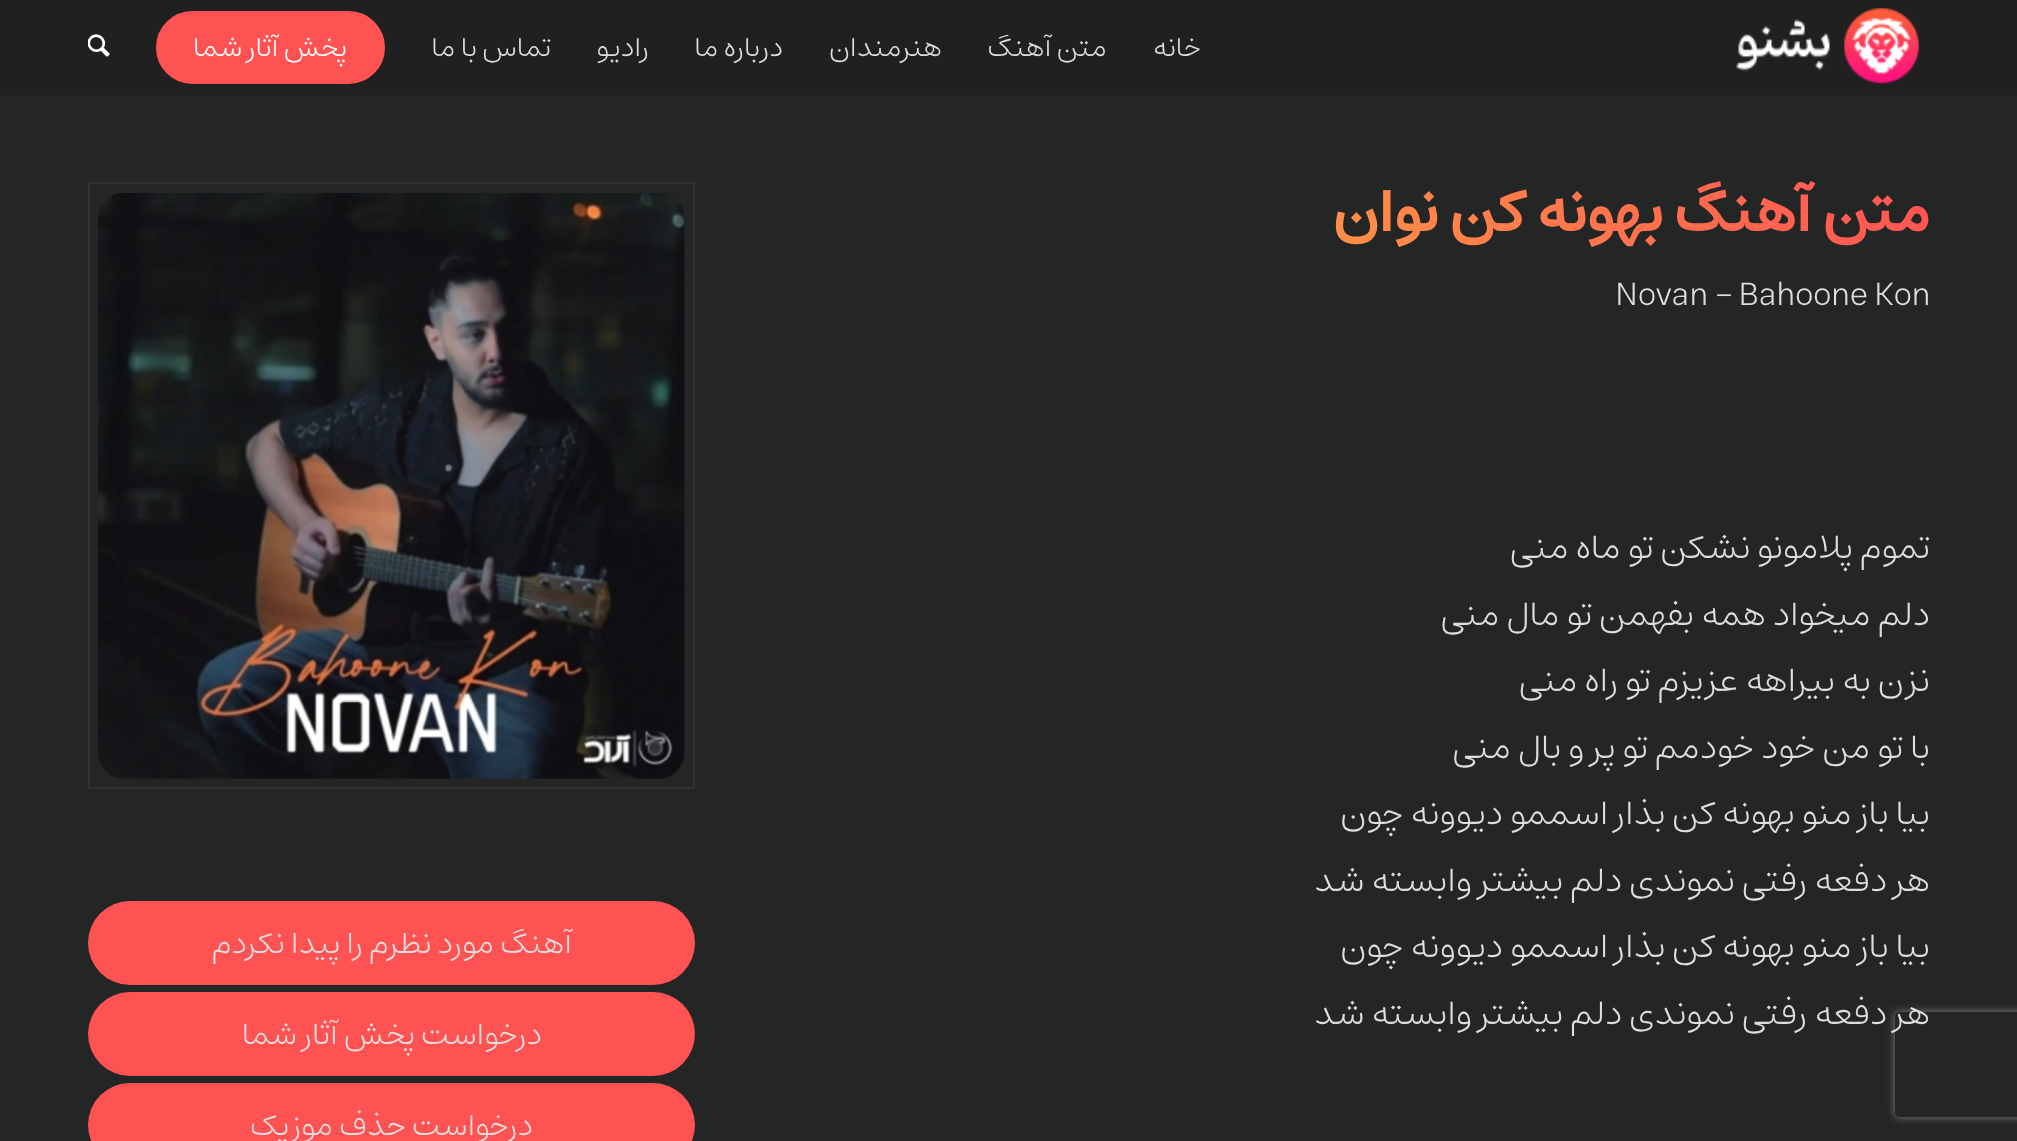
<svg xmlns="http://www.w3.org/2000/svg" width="2017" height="1141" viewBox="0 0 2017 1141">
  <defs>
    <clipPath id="clip1"><path d="M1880 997H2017V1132H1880ZM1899 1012H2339C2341 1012 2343 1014 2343 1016V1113C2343 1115 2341 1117 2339 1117H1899C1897 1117 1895 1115 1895 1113V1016C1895 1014 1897 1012 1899 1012Z" clip-rule="evenodd"/></clipPath>
    <filter id="blur1" x="-50%" y="-200%" width="200%" height="500%"><feGaussianBlur stdDeviation="4.5"/></filter>
    <linearGradient id="g1" gradientUnits="userSpaceOnUse" x1="912" y1="471" x2="1801" y2="-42"><stop offset="0" stop-color="#ffc23d"/><stop offset="1" stop-color="#ff5353"/></linearGradient>
  </defs>
  <rect width="100%" height="100%" fill="#202020"/>
  <rect x="0" y="95" width="2017" height="1046" fill="#242525"/>
  <g clip-path="url(#clip1)">
    <rect x="1895" y="1012" width="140" height="105" rx="4" fill="#808080" filter="url(#blur1)"/>
  </g>
  <image x="1736" y="8" width="183" height="77" href="img1.png"/>
  <text x="1201" y="56" font-family="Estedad" font-size="28" font-weight="300" direction="rtl" fill="#dedede">خانه</text>
  <text x="1107" y="56" font-family="Estedad" font-size="28" font-weight="300" direction="rtl" fill="#dedede">متن آهنگ</text>
  <text x="942" y="56" font-family="Estedad" font-size="28" font-weight="300" direction="rtl" fill="#dedede">هنرمندان</text>
  <text x="783" y="56" font-family="Estedad" font-size="28" font-weight="300" direction="rtl" fill="#dedede">درباره ما</text>
  <text x="649" y="56" font-family="Estedad" font-size="28" font-weight="300" direction="rtl" fill="#dedede">رادیو</text>
  <text x="551" y="56" font-family="Estedad" font-size="28" font-weight="300" direction="rtl" fill="#dedede">تماس با ما</text>
  <rect x="158" y="13" width="225" height="69" rx="34.5" fill="#ff5353" stroke="#ff5353" stroke-width="4"/>
  <text x="347" y="56" font-family="Estedad" font-size="28" font-weight="300" direction="rtl" fill="#ffffff">پخش آثار شما</text>
  <image x="88" y="34" width="22" height="23" href="img2.png"/>
  <text x="1930" y="231" font-family="Estedad" font-size="59.5" font-weight="bold" direction="rtl" fill="url(#g1)">متن آهنگ بهونه کن نوان</text>
  <text x="1615" y="305" font-family="Estedad" font-size="33.25" font-weight="300" fill="#dedede">Novan – Bahoone Kon</text>
  <text x="1930" y="558" font-family="Estedad" font-size="35" font-weight="300" direction="rtl" fill="#dedede">تموم پلامونو نشکن تو ماه منی</text>
  <text x="1930" y="625" font-family="Estedad" font-size="35" font-weight="300" direction="rtl" fill="#dedede">دلم میخواد همه بفهمن تو مال منی</text>
  <text x="1930" y="691" font-family="Estedad" font-size="35" font-weight="300" direction="rtl" fill="#dedede">نزن به بیراهه عزیزم تو راه منی</text>
  <text x="1930" y="758" font-family="Estedad" font-size="35" font-weight="300" direction="rtl" fill="#dedede">با تو من خود خودمم تو پر و بال منی</text>
  <text x="1930" y="824" font-family="Estedad" font-size="35" font-weight="300" direction="rtl" fill="#dedede">بیا باز منو بهونه کن بذار اسممو دیوونه چون</text>
  <text x="1930" y="891" font-family="Estedad" font-size="35" font-weight="300" direction="rtl" fill="#dedede">هر دفعه رفتی نموندی دلم بیشتر وابسته شد</text>
  <text x="1930" y="957" font-family="Estedad" font-size="35" font-weight="300" direction="rtl" fill="#dedede">بیا باز منو بهونه کن بذار اسممو دیوونه چون</text>
  <text x="1930" y="1024" font-family="Estedad" font-size="35" font-weight="300" direction="rtl" fill="#dedede">هر دفعه رفتی نموندی دلم بیشتر وابسته شد</text>
  <rect x="89" y="183" width="605" height="605" fill="none" stroke="#313333" stroke-width="2"/>
  <image x="98" y="193" width="587" height="586" href="img3.png"/>
  <rect x="88" y="901" width="607" height="84" rx="42" fill="#ff5353"/>
  <text x="572" y="953" font-family="Estedad" font-size="31.5" font-weight="300" direction="rtl" fill="#dedede">آهنگ مورد نظرم را پیدا نکردم</text>
  <rect x="88" y="992" width="607" height="84" rx="42" fill="#ff5353"/>
  <text x="542" y="1044" font-family="Estedad" font-size="31.5" font-weight="300" direction="rtl" fill="#dedede">درخواست پخش آثار شما</text>
  <rect x="88" y="1083" width="607" height="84" rx="42" fill="#ff5353"/>
  <text x="533" y="1135" font-family="Estedad" font-size="31.5" font-weight="300" direction="rtl" fill="#dedede">درخواست حذف موزیک</text>
</svg>
